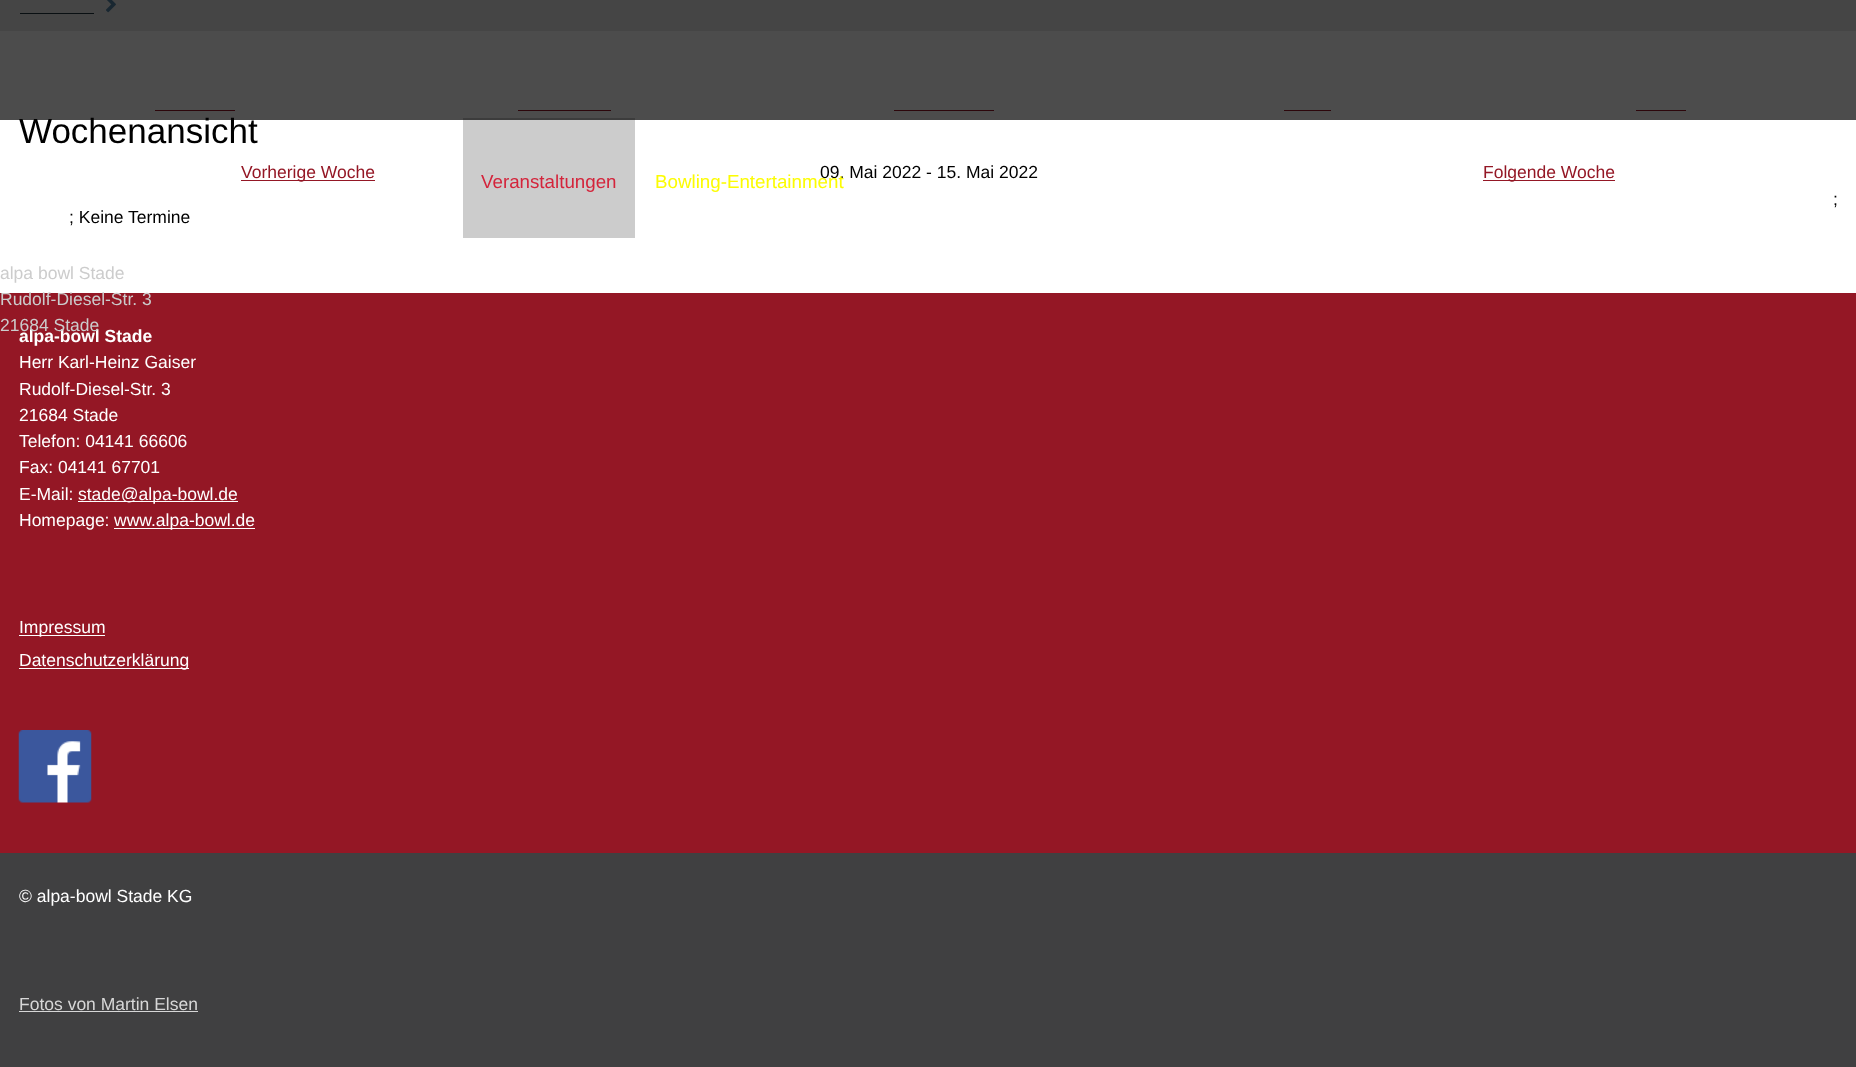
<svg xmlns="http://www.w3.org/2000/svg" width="1856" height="1067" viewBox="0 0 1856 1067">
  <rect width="100%" height="100%" fill="#ffffff"/>
  <rect x="0" y="0" width="1856" height="31" fill="#e8e8e8"/>
  <image x="106" y="0" width="10" height="13" href="img1.png"/>
  <rect x="20" y="13" width="74" height="1" fill="#20323e"/>
  <rect x="155" y="110" width="80" height="1" fill="#941725"/>
  <rect x="518" y="110" width="93" height="1" fill="#941725"/>
  <rect x="894" y="110" width="100" height="1" fill="#941725"/>
  <rect x="1284" y="110" width="47" height="1" fill="#941725"/>
  <rect x="1636" y="110" width="50" height="1" fill="#941725"/>
  <text x="19" y="143" font-family="Liberation Sans" font-size="35" fill="#000000">Wochenansicht</text>
  <rect x="241" y="180" width="134" height="1" fill="#941725"/>
  <text x="241" y="178" font-family="Liberation Sans" font-size="17.5" fill="#941725">Vorherige Woche</text>
  <text x="820" y="178" font-family="Liberation Sans" font-size="17.5" fill="#000000">09. Mai 2022 - 15. Mai 2022</text>
  <rect x="1483" y="180" width="132" height="1" fill="#941725"/>
  <text x="1483" y="178" font-family="Liberation Sans" font-size="17.5" fill="#941725">Folgende Woche</text>
  <text x="1833" y="205" font-family="Liberation Sans" font-size="17.5" fill="#000000">;</text>
  <text x="69" y="223" font-family="Liberation Sans" font-size="17.5" fill="#000000">; Keine Termine</text>
  <rect x="0" y="293" width="1856" height="560" fill="#941725"/>
  <text x="19" y="342" font-family="Liberation Sans" font-size="17.5" font-weight="bold" fill="#ffffff">alpa-bowl Stade</text>
  <text x="19" y="368" font-family="Liberation Sans" font-size="17.5" fill="#ffffff">Herr Karl-Heinz Gaiser</text>
  <text x="19" y="395" font-family="Liberation Sans" font-size="17.5" fill="#ffffff">Rudolf-Diesel-Str. 3</text>
  <text x="19" y="421" font-family="Liberation Sans" font-size="17.5" fill="#ffffff">21684 Stade</text>
  <text x="19" y="447" font-family="Liberation Sans" font-size="17.5" fill="#ffffff">Telefon: 04141 66606</text>
  <text x="19" y="473" font-family="Liberation Sans" font-size="17.5" fill="#ffffff">Fax: 04141 67701</text>
  <text x="19" y="500" font-family="Liberation Sans" font-size="17.5" fill="#ffffff">E-Mail:</text>
  <rect x="78" y="501" width="160" height="1" fill="#ffffff"/>
  <text x="78" y="500" font-family="Liberation Sans" font-size="17.5" fill="#ffffff">stade@alpa-bowl.de</text>
  <text x="19" y="526" font-family="Liberation Sans" font-size="17.5" fill="#ffffff">Homepage:</text>
  <rect x="114" y="528" width="141" height="1" fill="#ffffff"/>
  <text x="114" y="526" font-family="Liberation Sans" font-size="17.5" fill="#ffffff">www.alpa-bowl.de</text>
  <rect x="19" y="635" width="86" height="1" fill="#ffffff"/>
  <text x="19" y="633" font-family="Liberation Sans" font-size="17.5" fill="#ffffff">Impressum</text>
  <rect x="19" y="668" width="170" height="1" fill="#ffffff"/>
  <text x="19" y="666" font-family="Liberation Sans" font-size="17.5" fill="#ffffff">Datenschutzerklärung</text>
  <image x="18" y="730" width="74" height="73" href="img2.png"/>
  <rect x="0" y="853" width="1856" height="214" fill="#404041"/>
  <text x="19" y="902" font-family="Liberation Sans" font-size="17.5" fill="#ffffff">© alpa-bowl Stade KG</text>
  <text x="19" y="1010" font-family="Liberation Sans" font-size="17.5" fill="#d7d7d7">Fotos von Martin Elsen</text>
  <rect x="19" y="1011" width="179" height="1" fill="#d7d7d7"/>
  <rect x="0" y="0" width="1856" height="120" fill="#000000" fill-opacity="0.7"/>
  <rect x="463" y="118" width="172" height="120" fill="#000000" fill-opacity="0.2"/>
  <text x="481" y="188" font-family="Liberation Sans" font-size="18.75" fill="#d4243b">Veranstaltungen</text>
  <text x="655" y="188" font-family="Liberation Sans" font-size="18.75" fill="#fcfc02">Bowling-Entertainment</text>
  <text x="0" y="279" font-family="Liberation Sans" font-size="17.5" fill="#cccccc">alpa bowl Stade</text>
  <text x="0" y="305" font-family="Liberation Sans" font-size="17.5" fill="#cccccc">Rudolf-Diesel-Str. 3</text>
  <text x="0" y="331" font-family="Liberation Sans" font-size="17.5" fill="#cccccc">21684 Stade</text>
</svg>
